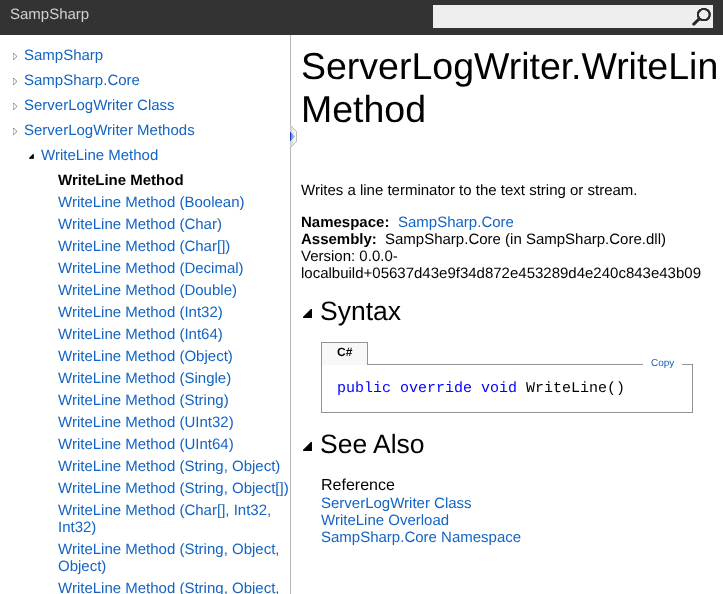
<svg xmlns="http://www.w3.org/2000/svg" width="723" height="594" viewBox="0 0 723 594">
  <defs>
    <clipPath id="clip1"><rect x="58" y="237" width="232" height="17"/></clipPath>
    <clipPath id="clip2"><rect x="58" y="347" width="232" height="17"/></clipPath>
    <clipPath id="clip3"><rect x="58" y="369" width="232" height="17"/></clipPath>
    <clipPath id="clip4"><rect x="58" y="391" width="232" height="17"/></clipPath>
    <clipPath id="clip5"><rect x="58" y="457" width="232" height="17"/></clipPath>
    <clipPath id="clip6"><rect x="58" y="479" width="232" height="17"/></clipPath>
    <clipPath id="clip7"><rect x="58" y="540" width="232" height="34"/></clipPath>
  </defs>
  <rect width="100%" height="100%" fill="#ffffff"/>
  <rect x="0" y="0" width="723" height="35" fill="#333333"/>
  <text x="10" y="19" font-family="Liberation Sans" font-size="15" fill="#d0d0d0">SampSharp</text>
  <rect x="433" y="5" width="280" height="23" fill="#eeeeee"/>
  <image x="692" y="8" width="19" height="18" href="img1.png"/>
  <rect x="290" y="35" width="1" height="559" fill="#b6b6b6"/>
  <image x="13" y="53" width="4" height="7" href="img2.png"/>
  <text x="24" y="60" font-family="Liberation Sans" font-size="15" fill="#1364c4">SampSharp</text>
  <image x="13" y="78" width="4" height="7" href="img2.png"/>
  <text x="24" y="85" font-family="Liberation Sans" font-size="15" fill="#1364c4">SampSharp.Core</text>
  <image x="13" y="103" width="4" height="7" href="img2.png"/>
  <text x="24" y="110" font-family="Liberation Sans" font-size="15" fill="#1364c4">ServerLogWriter Class</text>
  <image x="13" y="128" width="4" height="7" href="img2.png"/>
  <text x="24" y="135" font-family="Liberation Sans" font-size="15" fill="#1364c4">ServerLogWriter Methods</text>
  <image x="29" y="154" width="5" height="5" href="img3.png"/>
  <text x="41" y="160" font-family="Liberation Sans" font-size="15" fill="#1364c4">WriteLine Method</text>
  <text x="58" y="185" font-family="Liberation Sans" font-size="15" font-weight="bold" fill="#000000">WriteLine Method</text>
  <text x="58" y="207" font-family="Liberation Sans" font-size="15" fill="#1364c4">WriteLine Method (Boolean)</text>
  <text x="58" y="229" font-family="Liberation Sans" font-size="15" fill="#1364c4">WriteLine Method (Char)</text>
  <g clip-path="url(#clip1)">
    <text x="58" y="251" font-family="Liberation Sans" font-size="15" fill="#1364c4">WriteLine Method (Char[])</text>
  </g>
  <text x="58" y="273" font-family="Liberation Sans" font-size="15" fill="#1364c4">WriteLine Method (Decimal)</text>
  <text x="58" y="295" font-family="Liberation Sans" font-size="15" fill="#1364c4">WriteLine Method (Double)</text>
  <text x="58" y="317" font-family="Liberation Sans" font-size="15" fill="#1364c4">WriteLine Method (Int32)</text>
  <text x="58" y="339" font-family="Liberation Sans" font-size="15" fill="#1364c4">WriteLine Method (Int64)</text>
  <g clip-path="url(#clip2)">
    <text x="58" y="361" font-family="Liberation Sans" font-size="15" fill="#1364c4">WriteLine Method (Object)</text>
  </g>
  <g clip-path="url(#clip3)">
    <text x="58" y="383" font-family="Liberation Sans" font-size="15" fill="#1364c4">WriteLine Method (Single)</text>
  </g>
  <g clip-path="url(#clip4)">
    <text x="58" y="405" font-family="Liberation Sans" font-size="15" fill="#1364c4">WriteLine Method (String)</text>
  </g>
  <text x="58" y="427" font-family="Liberation Sans" font-size="15" fill="#1364c4">WriteLine Method (UInt32)</text>
  <text x="58" y="449" font-family="Liberation Sans" font-size="15" fill="#1364c4">WriteLine Method (UInt64)</text>
  <g clip-path="url(#clip5)">
    <text x="58" y="471" font-family="Liberation Sans" font-size="15" fill="#1364c4">WriteLine Method (String, Object)</text>
  </g>
  <g clip-path="url(#clip6)">
    <text x="58" y="493" font-family="Liberation Sans" font-size="15" fill="#1364c4">WriteLine Method (String, Object[])</text>
  </g>
  <text x="58" y="515" font-family="Liberation Sans" font-size="15" fill="#1364c4">WriteLine Method (Char[], Int32,</text>
  <text x="58" y="532" font-family="Liberation Sans" font-size="15" fill="#1364c4">Int32)</text>
  <text x="58" y="554" font-family="Liberation Sans" font-size="15" fill="#1364c4">WriteLine Method (String, Object,</text>
  <g clip-path="url(#clip7)">
    <text x="58" y="571" font-family="Liberation Sans" font-size="15" fill="#1364c4">Object)</text>
  </g>
  <text x="58" y="593" font-family="Liberation Sans" font-size="15" fill="#1364c4">WriteLine Method (String, Object,</text>
  <image x="290" y="125" width="7" height="23" href="img4.png"/>
  <text x="301" y="79" font-family="Liberation Sans" font-size="37.5" fill="#000000">ServerLogWriter</text>
  <text x="571" y="79" font-family="Liberation Sans" font-size="37.5" fill="#000000">.WriteLin</text>
  <text x="301" y="122" font-family="Liberation Sans" font-size="37.5" fill="#000000">Method</text>
  <text x="301" y="195" font-family="Liberation Sans" font-size="15" fill="#000000">Writes a line terminator to the text string or stream.</text>
  <text x="301" y="227" font-family="Liberation Sans" font-size="15" font-weight="bold" fill="#000000">Namespace:</text>
  <text x="398" y="227" font-family="Liberation Sans" font-size="15" fill="#1364c4">SampSharp.Core</text>
  <text x="301" y="244" font-family="Liberation Sans" font-size="15" font-weight="bold" fill="#000000">Assembly:</text>
  <text x="385" y="244" font-family="Liberation Sans" font-size="15" fill="#000000">SampSharp.Core (in SampSharp.Core.dll)</text>
  <text x="301" y="261" font-family="Liberation Sans" font-size="15" fill="#000000">Version: 0.0.0-</text>
  <text x="301" y="278" font-family="Liberation Sans" font-size="15" fill="#000000">localbuild+05637d43e9f34d872e453289d4e240c843e43b09</text>
  <image x="303" y="309" width="9" height="9" href="img5.png"/>
  <text x="320" y="320" font-family="Liberation Sans" font-size="26.5" fill="#000000">Syntax</text>
  <rect x="321.5" y="364.5" width="371" height="48" fill="none" stroke="#939393"/>
  <rect x="322" y="343" width="45" height="22" fill="#f8f8f8"/>
  <rect x="321" y="342" width="47" height="1" fill="#939393"/>
  <rect x="367" y="342" width="1" height="23" fill="#939393"/>
  <rect x="321" y="342" width="1" height="23" fill="#939393"/>
  <text x="337" y="356" font-family="Liberation Sans" font-size="12" font-weight="bold" fill="#000000">C#</text>
  <rect x="643" y="364" width="39" height="1" fill="#ffffff"/>
  <text x="651" y="366" font-family="Liberation Sans" font-size="10" fill="#1364c4">Copy</text>
  <text x="337" y="392" font-family="Liberation Mono" font-size="15" fill="#0000ff">public override void</text>
  <text x="526" y="392" font-family="Liberation Mono" font-size="15" fill="#000000">WriteLine()</text>
  <image x="303" y="442" width="9" height="9" href="img5.png"/>
  <text x="320" y="453" font-family="Liberation Sans" font-size="26.5" fill="#000000">See Also</text>
  <text x="321" y="490" font-family="Liberation Sans" font-size="16" fill="#000000">Reference</text>
  <text x="321" y="508" font-family="Liberation Sans" font-size="15" fill="#1364c4">ServerLogWriter Class</text>
  <text x="321" y="525" font-family="Liberation Sans" font-size="15" fill="#1364c4">WriteLine Overload</text>
  <text x="321" y="542" font-family="Liberation Sans" font-size="15" fill="#1364c4">SampSharp.Core Namespace</text>
</svg>
